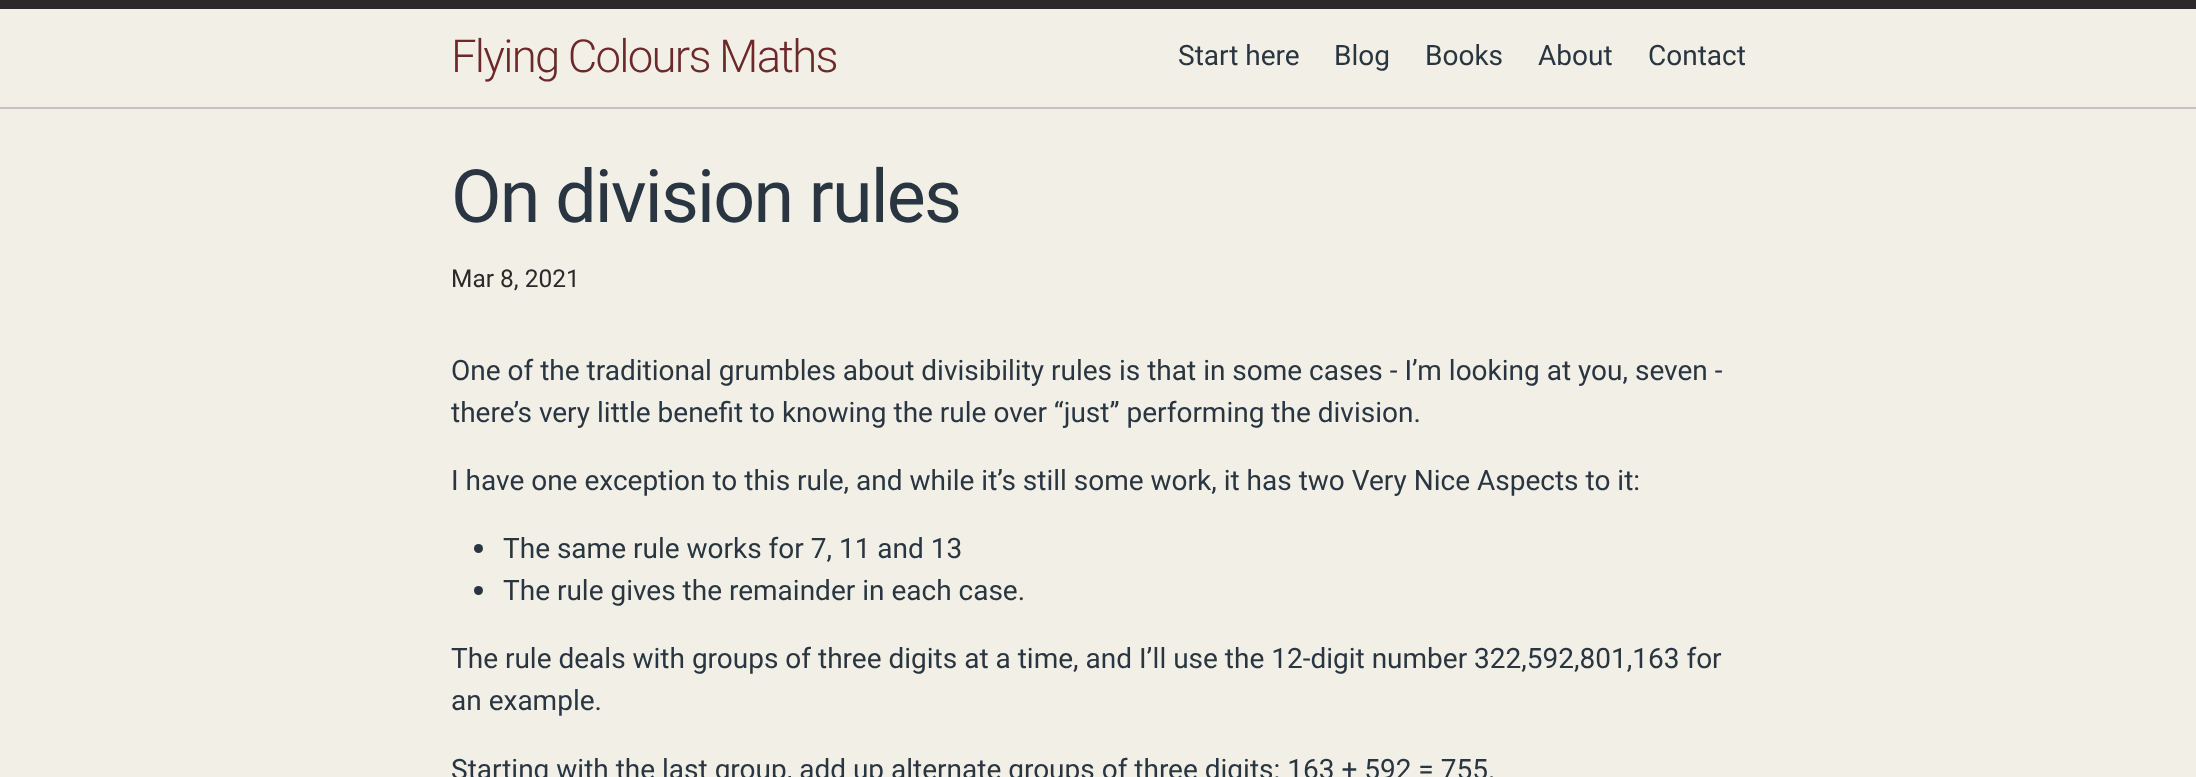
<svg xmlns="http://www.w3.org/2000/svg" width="2196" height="777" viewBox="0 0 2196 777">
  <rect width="100%" height="100%" fill="#f1efe6"/>
  <rect x="0" y="0" width="2196" height="9" fill="#2d292a"/>
  <rect x="0" y="107" width="2196" height="2" fill="#c7c1c3"/>
  <text x="451" y="72" font-family="Roboto" font-size="45.5" font-weight="300" letter-spacing="-1.75" fill="#6d292a">Flying Colours Maths</text>
  <text x="1178" y="65" font-family="Roboto" font-size="28" fill="#293641">Start here</text>
  <text x="1334" y="65" font-family="Roboto" font-size="28" fill="#293641">Blog</text>
  <text x="1425" y="65" font-family="Roboto" font-size="28" fill="#293641">Books</text>
  <text x="1538" y="65" font-family="Roboto" font-size="28" fill="#293641">About</text>
  <text x="1648" y="65" font-family="Roboto" font-size="28" fill="#293641">Contact</text>
  <text x="451" y="222" font-family="Roboto" font-size="73.5" letter-spacing="-1.75" fill="#293641">On division rules</text>
  <text x="451" y="287" font-family="Roboto" font-size="24.5" fill="#2d292a">Mar 8, 2021</text>
  <text x="451" y="380" font-family="Roboto" font-size="28" fill="#293641">One of the traditional grumbles about divisibility rules is that in some cases - I’m looking at you, seven -</text>
  <text x="451" y="422" font-family="Roboto" font-size="28" fill="#293641">there’s very little benefit to knowing the rule over “just” performing the division.</text>
  <text x="451" y="490" font-family="Roboto" font-size="28" fill="#293641">I have one exception to this rule, and while it’s still some work, it has two Very Nice Aspects to it:</text>
  <circle cx="478.5" cy="548.5" r="4.5" fill="#293641"/>
  <text x="503" y="558" font-family="Roboto" font-size="28" fill="#293641">The same rule works for 7, 11 and 13</text>
  <circle cx="478.5" cy="590.5" r="4.5" fill="#293641"/>
  <text x="503" y="600" font-family="Roboto" font-size="28" fill="#293641">The rule gives the remainder in each case.</text>
  <text x="451" y="668" font-family="Roboto" font-size="28" fill="#293641">The rule deals with groups of three digits at a time, and I’ll use the 12-digit number 322,592,801,163 for</text>
  <text x="451" y="710" font-family="Roboto" font-size="28" fill="#293641">an example.</text>
  <text x="451" y="779" font-family="Roboto" font-size="28" fill="#293641">Starting with the last group, add up alternate groups of three digits: 163 + 592 = 755.</text>
</svg>
